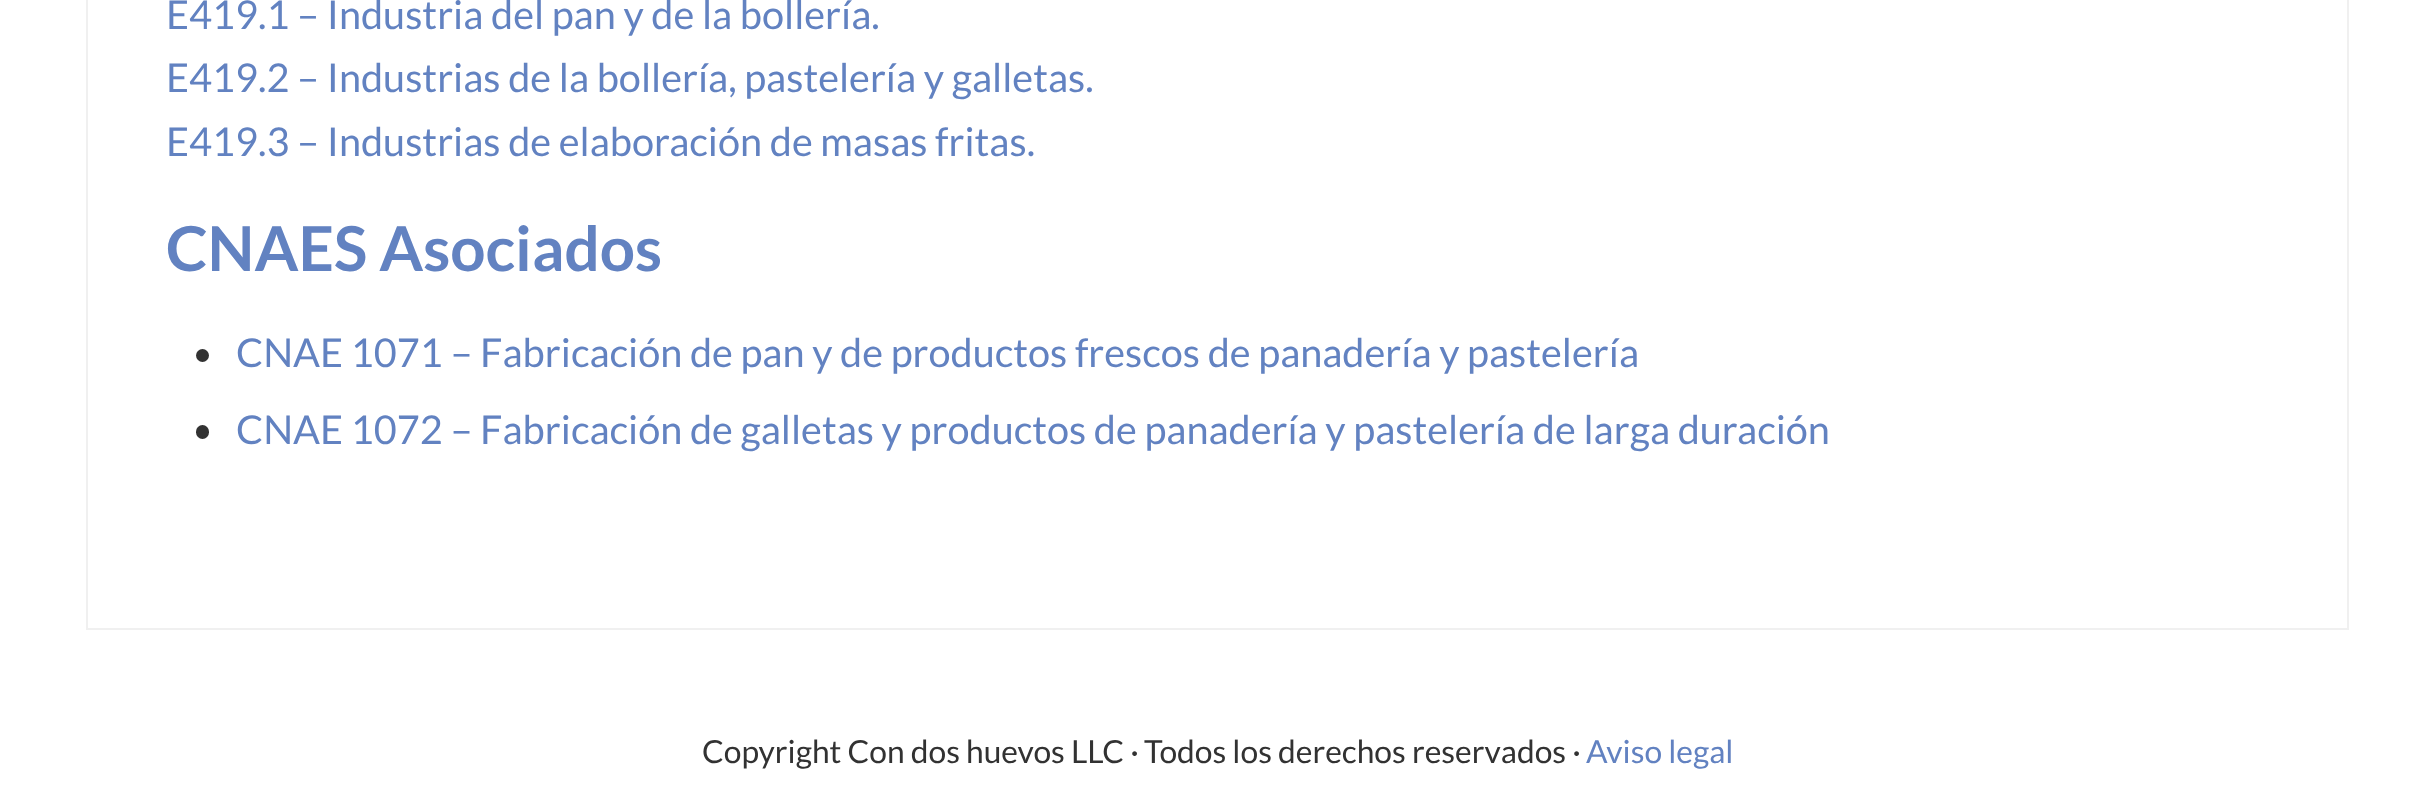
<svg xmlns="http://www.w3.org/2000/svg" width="2433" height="793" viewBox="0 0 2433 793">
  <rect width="100%" height="100%" fill="#ffffff"/>
  <rect x="87" y="-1" width="2261" height="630" fill="none" stroke="#f0f0f0" stroke-width="2"/>
  <text x="166" y="29" font-family="Lato" font-size="39.65" fill="#6282c1">E419.1 – Industria del pan y de la bollería.</text>
  <text x="166" y="92" font-family="Lato" font-size="39.65" fill="#6282c1">E419.2 – Industrias de la bollería, pastelería y galletas.</text>
  <text x="166" y="156" font-family="Lato" font-size="39.65" fill="#6282c1">E419.3 – Industrias de elaboración de masas fritas.</text>
  <text x="166" y="271" font-family="Lato" font-size="62" font-weight="bold" fill="#6282c1">CNAES Asociados</text>
  <circle cx="202.5" cy="355.5" r="6.5" fill="#323232"/>
  <text x="236" y="367" font-family="Lato" font-size="39.65" fill="#6282c1">CNAE 1071 – Fabricación de pan y de productos frescos de panadería y pastelería</text>
  <rect x="196" y="425" width="13" height="14" rx="6.5" fill="#323232"/>
  <text x="236" y="444" font-family="Lato" font-size="39.65" fill="#6282c1">CNAE 1072 – Fabricación de galletas y productos de panadería y pastelería de larga duración</text>
  <text x="702" y="763" font-family="Lato" font-size="31.75" fill="#323232">Copyright Con dos huevos LLC ·</text>
  <text x="1144" y="763" font-family="Lato" font-size="31.75" fill="#323232">Todos los derechos reservados ·</text>
  <text x="1586" y="763" font-family="Lato" font-size="31.75" fill="#6282c1">Aviso legal</text>
</svg>
